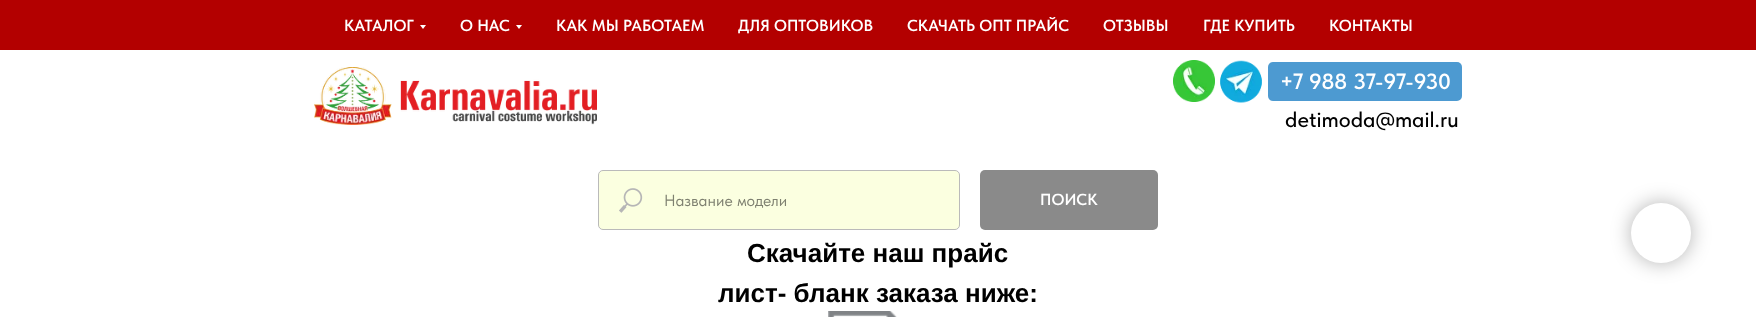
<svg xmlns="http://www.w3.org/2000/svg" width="1756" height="317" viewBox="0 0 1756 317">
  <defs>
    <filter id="blur1" x="-50%" y="-200%" width="200%" height="500%"><feGaussianBlur stdDeviation="10"/></filter>
  </defs>
  <rect width="100%" height="100%" fill="#ffffff"/>
  <rect x="0" y="0" width="1756" height="50" fill="#b30000"/>
  <text x="344" y="31" font-family="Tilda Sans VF" font-size="16" font-weight="600" fill="#ffffff">КАТАЛОГ</text>
  <path d="M420 25H426L423 29Z" fill="#ffffff"/>
  <text x="460" y="31" font-family="Tilda Sans VF" font-size="16" font-weight="600" fill="#ffffff">О НАС</text>
  <path d="M516 25H522L519 29Z" fill="#ffffff"/>
  <text x="556" y="31" font-family="Tilda Sans VF" font-size="16" font-weight="600" fill="#ffffff">КАК МЫ РАБОТАЕМ</text>
  <text x="738" y="31" font-family="Tilda Sans VF" font-size="16" font-weight="600" fill="#ffffff">ДЛЯ ОПТОВИКОВ</text>
  <text x="907" y="31" font-family="Tilda Sans VF" font-size="16" font-weight="600" fill="#ffffff">СКАЧАТЬ ОПТ ПРАЙС</text>
  <text x="1103" y="31" font-family="Tilda Sans VF" font-size="16" font-weight="600" fill="#ffffff">ОТЗЫВЫ</text>
  <text x="1203" y="31" font-family="Tilda Sans VF" font-size="16" font-weight="600" fill="#ffffff">ГДЕ КУПИТЬ</text>
  <text x="1329" y="31" font-family="Tilda Sans VF" font-size="16" font-weight="600" fill="#ffffff">КОНТАКТЫ</text>
  <image x="314" y="67" width="283" height="58" href="img1.png"/>
  <image x="1173" y="60" width="42" height="42" href="img2.png"/>
  <image x="1220" y="60" width="42" height="43" href="img3.png"/>
  <rect x="1268" y="62" width="194" height="39" rx="5" fill="#4d9ad1"/>
  <text x="1280" y="89" font-family="Tilda Sans VF" font-size="22" font-weight="600" fill="#ffffff">+7 988 37-97-930</text>
  <text x="1285" y="127" font-family="Tilda Sans VF" font-size="22" font-weight="500" fill="#000000">detimoda@mail.ru</text>
  <rect x="598.5" y="170.5" width="361" height="59" rx="4.5" fill="#fbffe0" stroke="#bababa"/>
  <image x="619" y="188" width="24" height="25" href="img4.png"/>
  <text x="664" y="206" font-family="Tilda Sans VF" font-size="16" fill="#7e8070">Название модели</text>
  <rect x="980" y="170" width="178" height="60" rx="5" fill="#8a8a8a"/>
  <text x="1040" y="205" font-family="Tilda Sans VF" font-size="16" font-weight="600" fill="#ffffff">ПОИСК</text>
  <text x="747" y="262" font-family="Liberation Sans" font-size="26" font-weight="bold" fill="#000000">Скачайте наш прайс</text>
  <text x="718" y="302" font-family="Liberation Sans" font-size="26" font-weight="bold" fill="#000000">лист- бланк заказа ниже:</text>
  <image x="828" y="311" width="69" height="6" href="img5.png"/>
  <rect x="1631" y="203" width="60" height="60" rx="30" fill="#000000" fill-opacity="0.3" filter="url(#blur1)"/>
  <circle cx="1661" cy="233" r="30" fill="#ffffff"/>
</svg>
